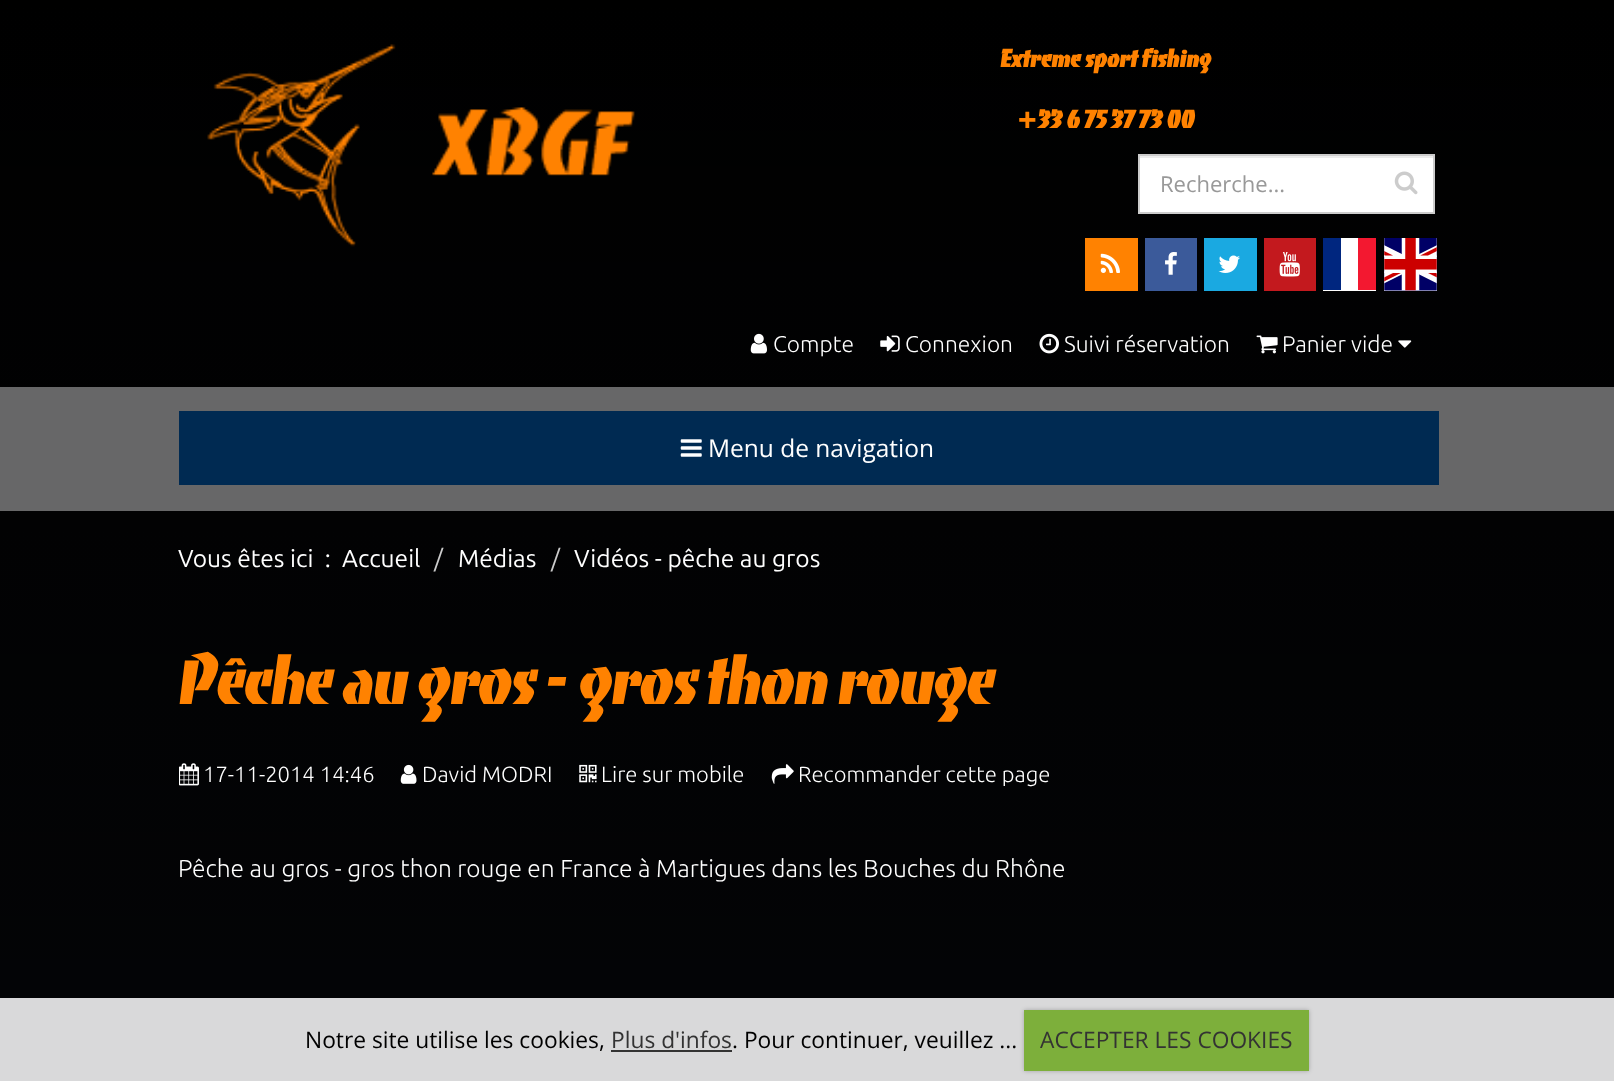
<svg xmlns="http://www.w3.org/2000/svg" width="1614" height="1081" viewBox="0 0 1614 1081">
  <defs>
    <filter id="blur1" x="-50%" y="-200%" width="200%" height="500%"><feGaussianBlur stdDeviation="2"/></filter>
  </defs>
  <rect width="100%" height="100%" fill="#ffffff"/>
  <image x="0" y="0" width="1614" height="998" href="img1.png"/>
  <image x="207" y="44" width="428" height="203" href="img2.png"/>
  <text x="1000" y="67" font-family="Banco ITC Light" font-size="26.25" font-weight="bold" font-style="italic" fill="#ff8201">Extreme sport fishing</text>
  <text x="1016" y="128" font-family="Banco ITC Light" font-size="26.25" font-weight="bold" font-style="italic" fill="#ff8201">+33 6 75 37 73 00</text>
  <rect x="1140" y="158" width="293" height="54" fill="#ffffff"/>
  <rect x="1139" y="156" width="294" height="2" fill="#ececec"/>
  <rect x="1139" y="155" width="295" height="58" fill="none" stroke="#cccccc" stroke-width="2"/>
  <text x="1160" y="192" font-family="Open Sans" font-size="22" fill="#999999">Recherche...</text>
  <image x="1394" y="171" width="24" height="24" href="img3.png"/>
  <rect x="1085" y="238" width="53" height="53" fill="#ff8201"/>
  <image x="1100" y="253" width="20" height="20" href="img4.png"/>
  <rect x="1145" y="238" width="52" height="53" fill="#3b5a9a"/>
  <image x="1165" y="252" width="12" height="23" href="img5.png"/>
  <rect x="1204" y="238" width="53" height="53" fill="#1aa9e1"/>
  <image x="1218" y="255" width="22" height="18" href="img6.png"/>
  <rect x="1264" y="238" width="52" height="53" fill="#c3191e"/>
  <image x="1279" y="252" width="21" height="25" href="img7.png"/>
  <rect x="1323" y="238" width="53" height="53" fill="#ffffff"/>
  <rect x="1323" y="238" width="18" height="52" fill="#00267f"/>
  <rect x="1358" y="238" width="18" height="52" fill="#f31830"/>
  <rect x="1384" y="238" width="53" height="53" fill="#ffffff"/>
  <image x="1384" y="238" width="53" height="53" href="img8.png"/>
  <image x="750" y="333" width="17" height="21" href="img9.png"/>
  <text x="773" y="352" font-family="Ubuntu" font-size="22.75" font-weight="300" fill="#ffffff">Compte</text>
  <image x="880" y="335" width="20" height="17" href="img10.png"/>
  <text x="905" y="352" font-family="Ubuntu" font-size="22.75" font-weight="300" fill="#ffffff">Connexion</text>
  <image x="1039" y="333" width="20" height="21" href="img11.png"/>
  <text x="1064" y="352" font-family="Ubuntu" font-size="22.75" font-weight="300" fill="#ffffff">Suivi réservation</text>
  <image x="1256" y="335" width="22" height="19" href="img12.png"/>
  <text x="1282" y="352" font-family="Ubuntu" font-size="22.75" font-weight="300" fill="#ffffff">Panier vide</text>
  <image x="1398" y="340" width="14" height="8" href="img13.png"/>
  <rect x="0" y="387" width="1614" height="124" fill="#676768"/>
  <rect x="179" y="411" width="1260" height="74" fill="#002a52"/>
  <image x="680" y="439" width="22" height="18" href="img14.png"/>
  <text x="708" y="457" font-family="Open Sans" font-size="24.5" fill="#ffffff">Menu de navigation</text>
  <text x="178" y="567" font-family="Ubuntu" font-size="24.5" fill="#ffffff" xml:space="preserve">Vous êtes ici  :</text>
  <text x="342" y="567" font-family="Ubuntu" font-size="24.5" fill="#ffffff">Accueil</text>
  <text x="434" y="567" font-family="Ubuntu" font-size="24.5" fill="#cccccc">/</text>
  <text x="458" y="567" font-family="Ubuntu" font-size="24.5" fill="#ffffff">Médias</text>
  <text x="551" y="567" font-family="Ubuntu" font-size="24.5" fill="#cccccc">/</text>
  <text x="574" y="567" font-family="Ubuntu" font-size="24.5" fill="#ffffff">Vidéos - pêche au gros</text>
  <text x="178" y="704" font-family="Banco ITC Light" font-size="73.5" font-weight="300" font-style="italic" letter-spacing="-1.75" fill="#ff8201">Pêche au gros - gros thon rouge</text>
  <image x="179" y="763" width="20" height="23" href="img15.png"/>
  <text x="203" y="782" font-family="Ubuntu" font-size="22" font-weight="300" fill="#ffffff">17-11-2014 14:46</text>
  <image x="400" y="764" width="17" height="20" href="img16.png"/>
  <text x="422" y="782" font-family="Ubuntu" font-size="22" font-weight="300" fill="#ffffff">David MODRI</text>
  <image x="579" y="764" width="18" height="19" href="img17.png"/>
  <text x="601" y="782" font-family="Ubuntu" font-size="22" font-weight="300" fill="#ffffff">Lire sur mobile</text>
  <image x="771" y="764" width="23" height="20" href="img18.png"/>
  <text x="798" y="782" font-family="Ubuntu" font-size="22" font-weight="300" fill="#ffffff">Recommander cette page</text>
  <text x="178" y="877" font-family="Ubuntu" font-size="24.5" font-weight="300" fill="#ffffff">Pêche au gros - gros thon rouge en France à Martigues dans les Bouches du Rhône</text>
  <rect x="0" y="998" width="1614" height="83" fill="#d9d9da"/>
  <text x="305" y="1048" font-family="Open Sans" font-size="22.75" fill="#000000">Notre site utilise les cookies,</text>
  <text x="611" y="1048" font-family="Open Sans" font-size="22.75" fill="#333333">Plus d'infos</text>
  <rect x="611" y="1050" width="121" height="2" fill="#333333"/>
  <text x="732" y="1048" font-family="Open Sans" font-size="22.75" fill="#000000">. Pour continuer, veuillez ...</text>
  <rect x="1024" y="1010" width="285" height="61" fill="#000000" fill-opacity="0.25" filter="url(#blur1)"/>
  <rect x="1024" y="1010" width="285" height="61" fill="#7daf3b"/>
  <text x="1040" y="1048" font-family="Open Sans" font-size="22.75" fill="#333333">ACCEPTER LES COOKIES</text>
</svg>
